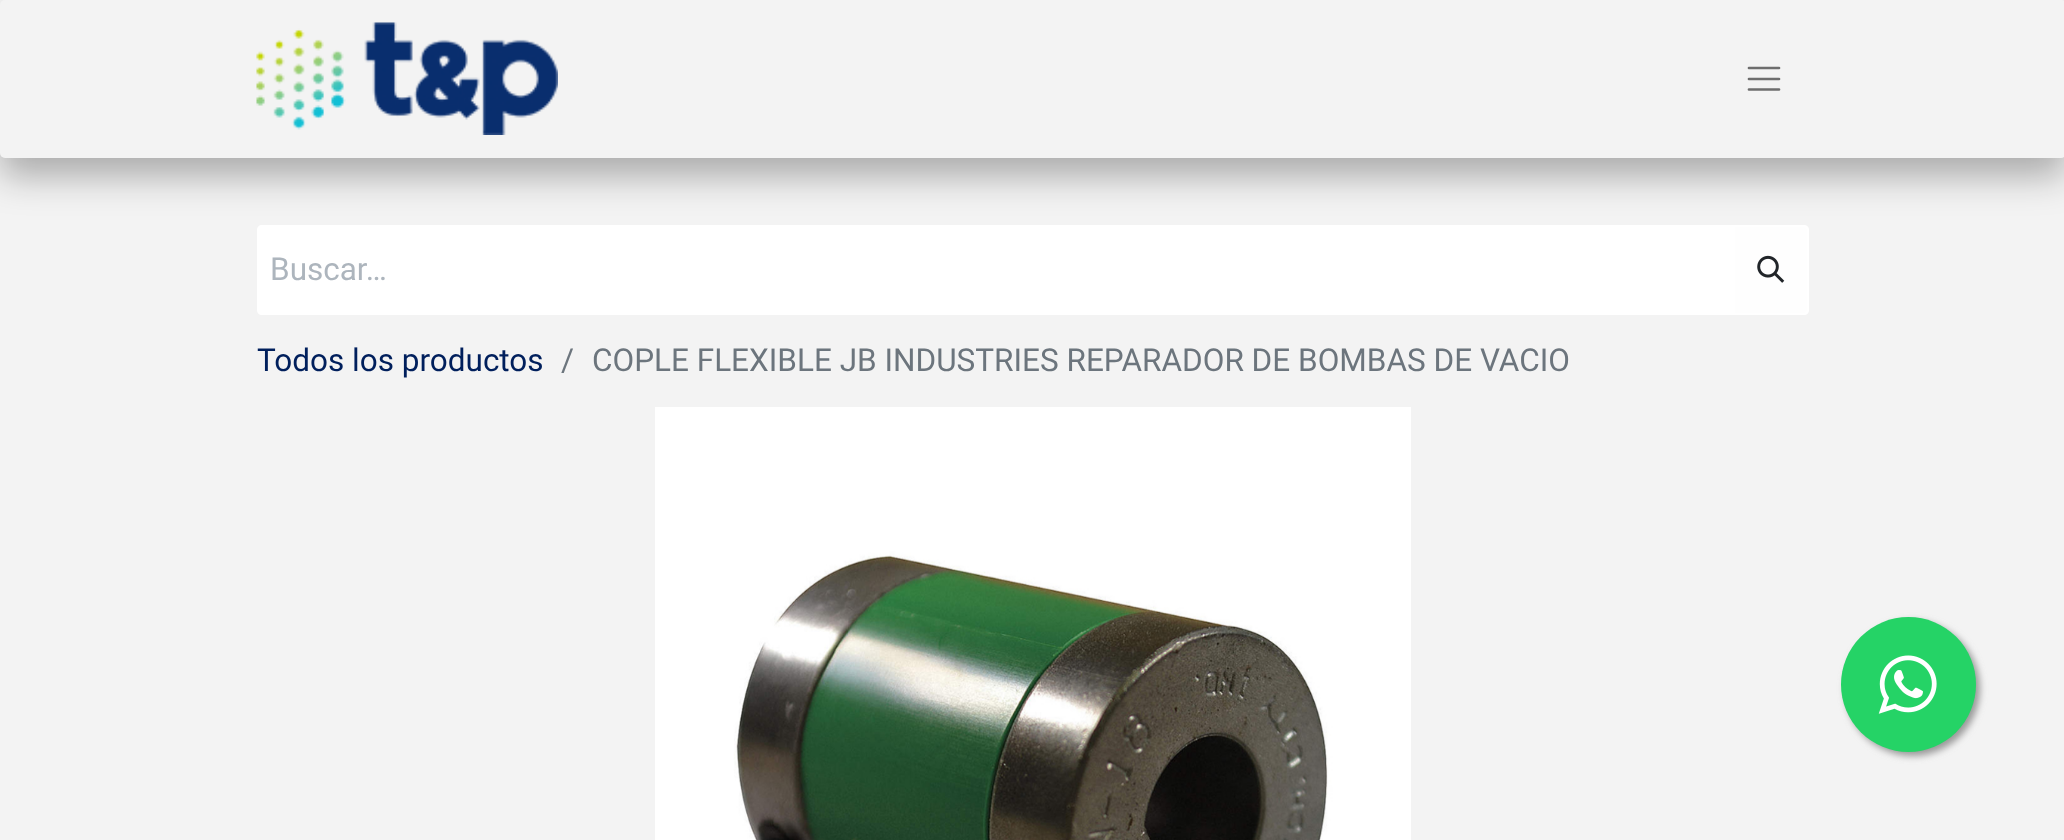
<svg xmlns="http://www.w3.org/2000/svg" width="2064" height="840" viewBox="0 0 2064 840">
  <defs>
    <filter id="blur1" x="-50%" y="-200%" width="200%" height="500%"><feGaussianBlur stdDeviation="18"/></filter>
    <filter id="blur2" x="-50%" y="-200%" width="200%" height="500%"><feGaussianBlur stdDeviation="3.5"/></filter>
  </defs>
  <rect width="100%" height="100%" fill="#f3f3f3"/>
  <path d="M262 225H1735V315H262C259 315 257 313 257 310V230C257 227 259 225 262 225Z" fill="#ffffff"/>
  <path d="M1733 225H1804C1807 225 1809 227 1809 230V310C1809 313 1807 315 1804 315H1733Z" fill="#ffffff" fill-opacity="0.85"/>
  <path d="M1734 226H1804C1806 226 1808 228 1808 230V310C1808 312 1806 314 1804 314H1734Z" fill="none" stroke="#ffffff" stroke-opacity="0.85" stroke-width="2"/>
  <rect x="0" y="18" width="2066" height="158" rx="5" fill="#000000" fill-opacity="0.3" filter="url(#blur1)"/>
  <rect x="0" y="0" width="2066" height="158" rx="5" fill="#f3f3f3"/>
  <image x="256" y="22" width="302" height="113" href="img1.png"/>
  <path d="M1749 68H1779M1749 79H1779M1749 89.5H1779" fill="none" stroke="#6d6d6d" stroke-width="2.7" stroke-linecap="round"/>
  <text x="270" y="280" font-family="Roboto" font-size="31.5" fill="#adb5bd">Buscar…</text>
  <image x="1757" y="255" width="28" height="28" href="img2.png"/>
  <text x="257" y="371" font-family="Roboto" font-size="31.5" fill="#001f5c">Todos los productos</text>
  <text x="561" y="371" font-family="Roboto" font-size="31.5" fill="#6c757d">/</text>
  <text x="592" y="371" font-family="Roboto" font-size="31.5" fill="#6c757d">COPLE FLEXIBLE JB INDUSTRIES REPARADOR DE BOMBAS DE VACIO</text>
  <image x="655" y="407" width="756" height="433" href="img3.png"/>
  <rect x="1845" y="621" width="135" height="135" rx="67.5" fill="#999999" filter="url(#blur2)"/>
  <circle cx="1908.5" cy="684.5" r="67.5" fill="#25d366"/>
  <image x="1878" y="655" width="59" height="59" href="img4.png"/>
</svg>
